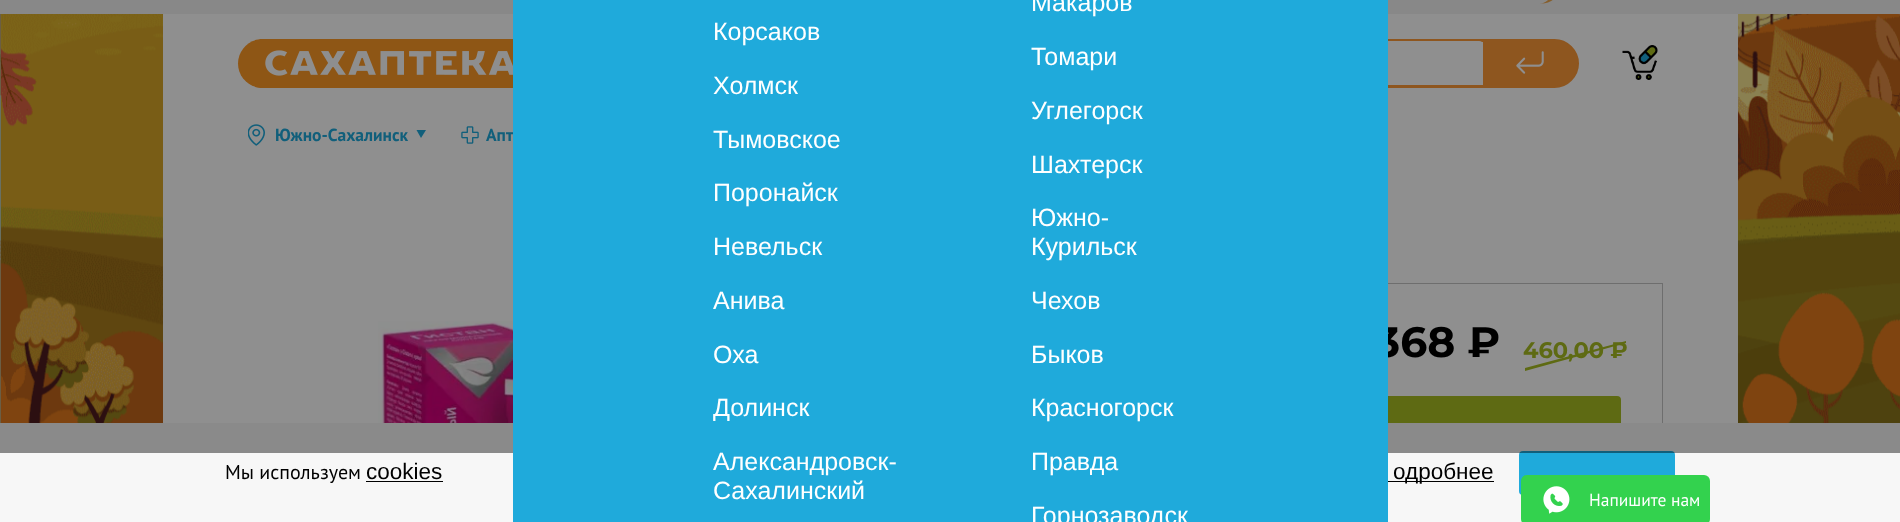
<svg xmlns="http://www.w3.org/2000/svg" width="1900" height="522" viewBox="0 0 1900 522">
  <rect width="100%" height="100%" fill="#ace8fc"/>
  <image x="0" y="14" width="1900" height="409" href="img1.png"/>
  <rect x="0" y="0" width="1900" height="14" fill="#f2f2f2"/>
  <image x="1540" y="0" width="13" height="4" href="img2.png"/>
  <rect x="163" y="14" width="1575" height="409" fill="#ffffff"/>
  <path d="M262.5 39H619V88H262.5C249 88 238 77 238 63.5C238 50 249 39 262.5 39Z" fill="#fe9927"/>
  <image x="265" y="50" width="248" height="26" href="img3.png"/>
  <path d="M620.5 40.5H1554.5C1567 40.5 1577.5 51 1577.5 63.5C1577.5 76 1567 86.5 1554.5 86.5H620.5Z" fill="none" stroke="#fd9938" stroke-width="3"/>
  <rect x="621" y="41" width="862" height="44" rx="4" fill="#ffffff"/>
  <path d="M1483 40H1555C1567.5 40 1578 50.5 1578 63C1578 75.5 1567.5 86 1555 86H1483Z" fill="#fd9938"/>
  <image x="1516" y="51" width="28" height="23" href="img4.png"/>
  <image x="1622" y="45" width="36" height="35" href="img5.png"/>
  <path d="M421 138L416.5 130H426Z" fill="#1faadb" fill-rule="evenodd"/>
  <image x="248" y="124" width="17" height="22" href="img6.png"/>
  <text x="275" y="141" font-family="PT Sans" font-size="17.5" font-weight="bold" fill="#1faadb">Южно-Сахалинск</text>
  <image x="461" y="126" width="18" height="18" href="img7.png"/>
  <text x="486" y="141" font-family="PT Sans" font-size="17.5" font-weight="bold" fill="#1faadb">Апт</text>
  <rect x="1273.5" y="283.5" width="389" height="209" fill="none" stroke="#c5c5c5"/>
  <rect x="1314" y="396" width="307" height="55" rx="4" fill="#a8be22"/>
  <rect x="0" y="423" width="1900" height="99" fill="#f7f7f7"/>
  <rect x="1519" y="451" width="156" height="44" rx="4" fill="#1faadb"/>
  <image x="378" y="321" width="135" height="102" href="img8.png"/>
  <text x="1375" y="357" font-family="Montserrat" font-size="42.5" font-weight="bold" fill="#000000">368 ₽</text>
  <path d="M1525 368L1626 341V343L1525 371Z" fill="#a8be22"/>
  <text x="1523" y="358" font-family="Montserrat" font-size="22.5" font-weight="bold" fill="#a8be22">460,00 ₽</text>
  <rect x="0" y="0" width="1900" height="453" fill="#000000" fill-opacity="0.44"/>
  <rect x="513" y="0" width="875" height="522" fill="#1faadb"/>
  <text x="1031" y="11" font-family="Liberation Sans" font-size="25" fill="#ffffff">Макаров</text>
  <text x="713" y="40" font-family="Liberation Sans" font-size="25" fill="#ffffff">Корсаков</text>
  <text x="1031" y="65" font-family="Liberation Sans" font-size="25" fill="#ffffff">Томари</text>
  <text x="713" y="94" font-family="Liberation Sans" font-size="25" fill="#ffffff">Холмск</text>
  <text x="1031" y="119" font-family="Liberation Sans" font-size="25" fill="#ffffff">Углегорск</text>
  <text x="713" y="148" font-family="Liberation Sans" font-size="25" fill="#ffffff">Тымовское</text>
  <text x="1031" y="173" font-family="Liberation Sans" font-size="25" fill="#ffffff">Шахтерск</text>
  <text x="713" y="201" font-family="Liberation Sans" font-size="25" fill="#ffffff">Поронайск</text>
  <text x="713" y="255" font-family="Liberation Sans" font-size="25" fill="#ffffff">Невельск</text>
  <text x="1031" y="226" font-family="Liberation Sans" font-size="25" fill="#ffffff">Южно-</text>
  <text x="1031" y="255" font-family="Liberation Sans" font-size="25" fill="#ffffff">Курильск</text>
  <text x="713" y="309" font-family="Liberation Sans" font-size="25" fill="#ffffff">Анива</text>
  <text x="1031" y="309" font-family="Liberation Sans" font-size="25" fill="#ffffff">Чехов</text>
  <text x="713" y="363" font-family="Liberation Sans" font-size="25" fill="#ffffff">Оха</text>
  <text x="1031" y="363" font-family="Liberation Sans" font-size="25" fill="#ffffff">Быков</text>
  <text x="713" y="416" font-family="Liberation Sans" font-size="25" fill="#ffffff">Долинск</text>
  <text x="1031" y="416" font-family="Liberation Sans" font-size="25" fill="#ffffff">Красногорск</text>
  <text x="713" y="470" font-family="Liberation Sans" font-size="25" fill="#ffffff">Александровск-</text>
  <text x="713" y="499" font-family="Liberation Sans" font-size="25" fill="#ffffff">Сахалинский</text>
  <text x="1031" y="470" font-family="Liberation Sans" font-size="25" fill="#ffffff">Правда</text>
  <text x="1031" y="524" font-family="Liberation Sans" font-size="25" fill="#ffffff">Горнозаводск</text>
  <text x="225" y="479" font-family="PT Sans" font-size="20" fill="#000000">Мы используем</text>
  <text x="366" y="479" font-family="Liberation Sans" font-size="22.5" fill="#000000">cookies</text>
  <rect x="366" y="481" width="77" height="1" fill="#000000"/>
  <rect x="1388" y="481" width="106" height="1" fill="#000000"/>
  <text x="1393" y="479" font-family="Liberation Sans" font-size="22.5" fill="#000000">одробнее</text>
  <rect x="1521" y="475" width="189" height="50" rx="6" fill="#33d24e"/>
  <image x="1543" y="486" width="27" height="28" href="img9.png"/>
  <text x="1589" y="506" font-family="PT Sans" font-size="17.5" fill="#ffffff">Напишите нам</text>
</svg>
